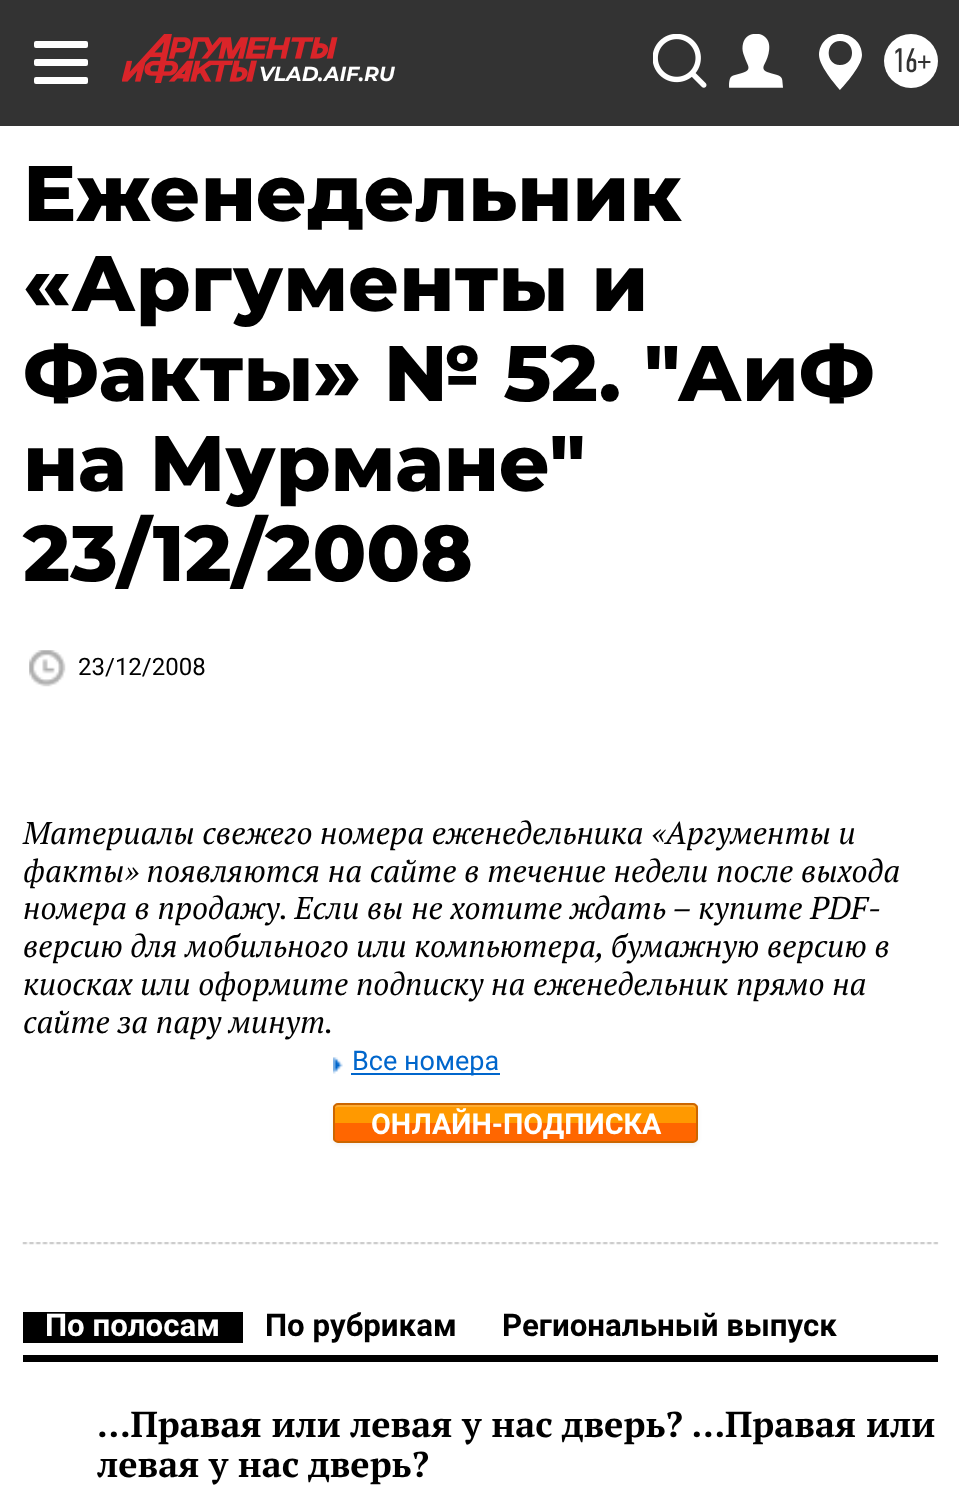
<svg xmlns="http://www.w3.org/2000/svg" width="959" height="1485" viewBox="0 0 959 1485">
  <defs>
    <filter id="blur1" x="-50%" y="-200%" width="200%" height="500%"><feGaussianBlur stdDeviation="2"/></filter>
    <clipPath id="clip1"><rect x="333" y="1103" width="365" height="40" rx="5"/></clipPath>
  </defs>
  <rect width="100%" height="100%" fill="#ffffff"/>
  <rect x="0" y="0" width="959" height="126" fill="#333333"/>
  <rect x="34" y="41" width="54" height="7" rx="2" fill="#ffffff"/>
  <rect x="34" y="59" width="54" height="7" rx="2" fill="#ffffff"/>
  <rect x="34" y="77" width="54" height="7" rx="2" fill="#ffffff"/>
  <image x="122" y="34" width="216" height="49" href="img1.png"/>
  <text x="259" y="81" font-family="Montserrat" font-size="20.25" font-weight="bold" font-style="italic" fill="#ffffff">VLAD.AIF.RU</text>
  <image x="653" y="34" width="54" height="54" href="img2.png"/>
  <image x="729" y="34" width="54" height="54" href="img3.png"/>
  <path d="M840 34C829 34 819 43 819 55C819 67 840 90 840 90C840 90 862 67 862 55C862 43 852 34 840 34ZM840 65C825 65 825 41 840 41C856 41 856 65 840 65Z" fill="#ffffff"/>
  <circle cx="911" cy="61" r="27" fill="#ffffff"/>
  <text x="892" y="72" font-family="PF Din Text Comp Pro" font-size="34" fill="#333333">16+</text>
  <image x="22" y="1242" width="917" height="3" href="img4.png"/>
  <text x="23" y="221" font-family="Montserrat" font-size="78.75" font-weight="800" fill="#000000">Еженедельник</text>
  <text x="23" y="311" font-family="Montserrat" font-size="78.75" font-weight="800" fill="#000000">«Аргументы и</text>
  <text x="23" y="401" font-family="Montserrat" font-size="78.75" font-weight="800" fill="#000000">Факты» № 52. "АиФ</text>
  <text x="23" y="491" font-family="Montserrat" font-size="78.75" font-weight="800" fill="#000000">на Мурмане"</text>
  <text x="23" y="581" font-family="Montserrat" font-size="78.75" font-weight="800" fill="#000000">23/12/2008</text>
  <image x="29" y="650" width="37" height="37" href="img5.png"/>
  <text x="78" y="675" font-family="Roboto" font-size="24" fill="#000000">23/12/2008</text>
  <text x="23" y="844" font-family="PT Serif" font-size="31.5" font-style="italic" fill="#000000">Материалы свежего номера еженедельника «Аргументы и</text>
  <text x="23" y="882" font-family="PT Serif" font-size="31.5" font-style="italic" fill="#000000">факты» появляются на сайте в течение недели после выхода</text>
  <text x="23" y="919" font-family="PT Serif" font-size="31.5" font-style="italic" fill="#000000">номера в продажу. Если вы не хотите ждать – купите PDF-</text>
  <text x="23" y="957" font-family="PT Serif" font-size="31.5" font-style="italic" fill="#000000">версию для мобильного или компьютера, бумажную версию в</text>
  <text x="23" y="995" font-family="PT Serif" font-size="31.5" font-style="italic" fill="#000000">киосках или оформите подписку на еженедельник прямо на</text>
  <text x="23" y="1033" font-family="PT Serif" font-size="31.5" font-style="italic" fill="#000000">сайте за пару минут.</text>
  <image x="333" y="1057" width="10" height="17" href="img6.png"/>
  <rect x="351" y="1073" width="149" height="2" fill="#0066cc"/>
  <text x="352" y="1070" font-family="Roboto" font-size="27" fill="#0066cc">Все номера</text>
  <rect x="333" y="1105" width="365" height="40" rx="5" fill="#000000" fill-opacity="0.05" filter="url(#blur1)"/>
  <g clip-path="url(#clip1)">
    <rect x="333" y="1105" width="365" height="18" fill="#ff9900"/>
    <rect x="333" y="1123" width="365" height="18" fill="#ff6600"/>
  </g>
  <path d="M338 1107H693C694 1107 695 1108 695 1109V1107C695 1106 694 1105 693 1105H337C336 1105 335 1106 335 1107V1109C335 1108 336 1107 338 1107Z" fill="#ffad33"/>
  <rect x="334" y="1104" width="363" height="38" rx="4" fill="none" stroke="#cc6600" stroke-width="2"/>
  <text x="371" y="1134" font-family="Roboto" font-size="28.75" font-weight="bold" fill="#ffffff">ОНЛАЙН-ПОДПИСКА</text>
  <rect x="23" y="1355" width="915" height="7" fill="#000000"/>
  <rect x="23" y="1312" width="220" height="31" fill="#000000"/>
  <text x="45" y="1336" font-family="Roboto" font-size="31.25" font-weight="bold" fill="#ffffff">По полосам</text>
  <text x="265" y="1336" font-family="Roboto" font-size="31.25" font-weight="bold" fill="#000000">По рубрикам</text>
  <text x="502" y="1336" font-family="Roboto" font-size="31.25" font-weight="bold" fill="#000000">Региональный выпуск</text>
  <text x="97" y="1437" word-spacing="0.25" font-family="PT Serif" font-size="36" font-weight="bold" fill="#000000">...Правая или левая у нас дверь? ...Правая или</text>
  <text x="97" y="1477" font-family="PT Serif" font-size="36" font-weight="bold" fill="#000000">левая у нас дверь?</text>
</svg>
